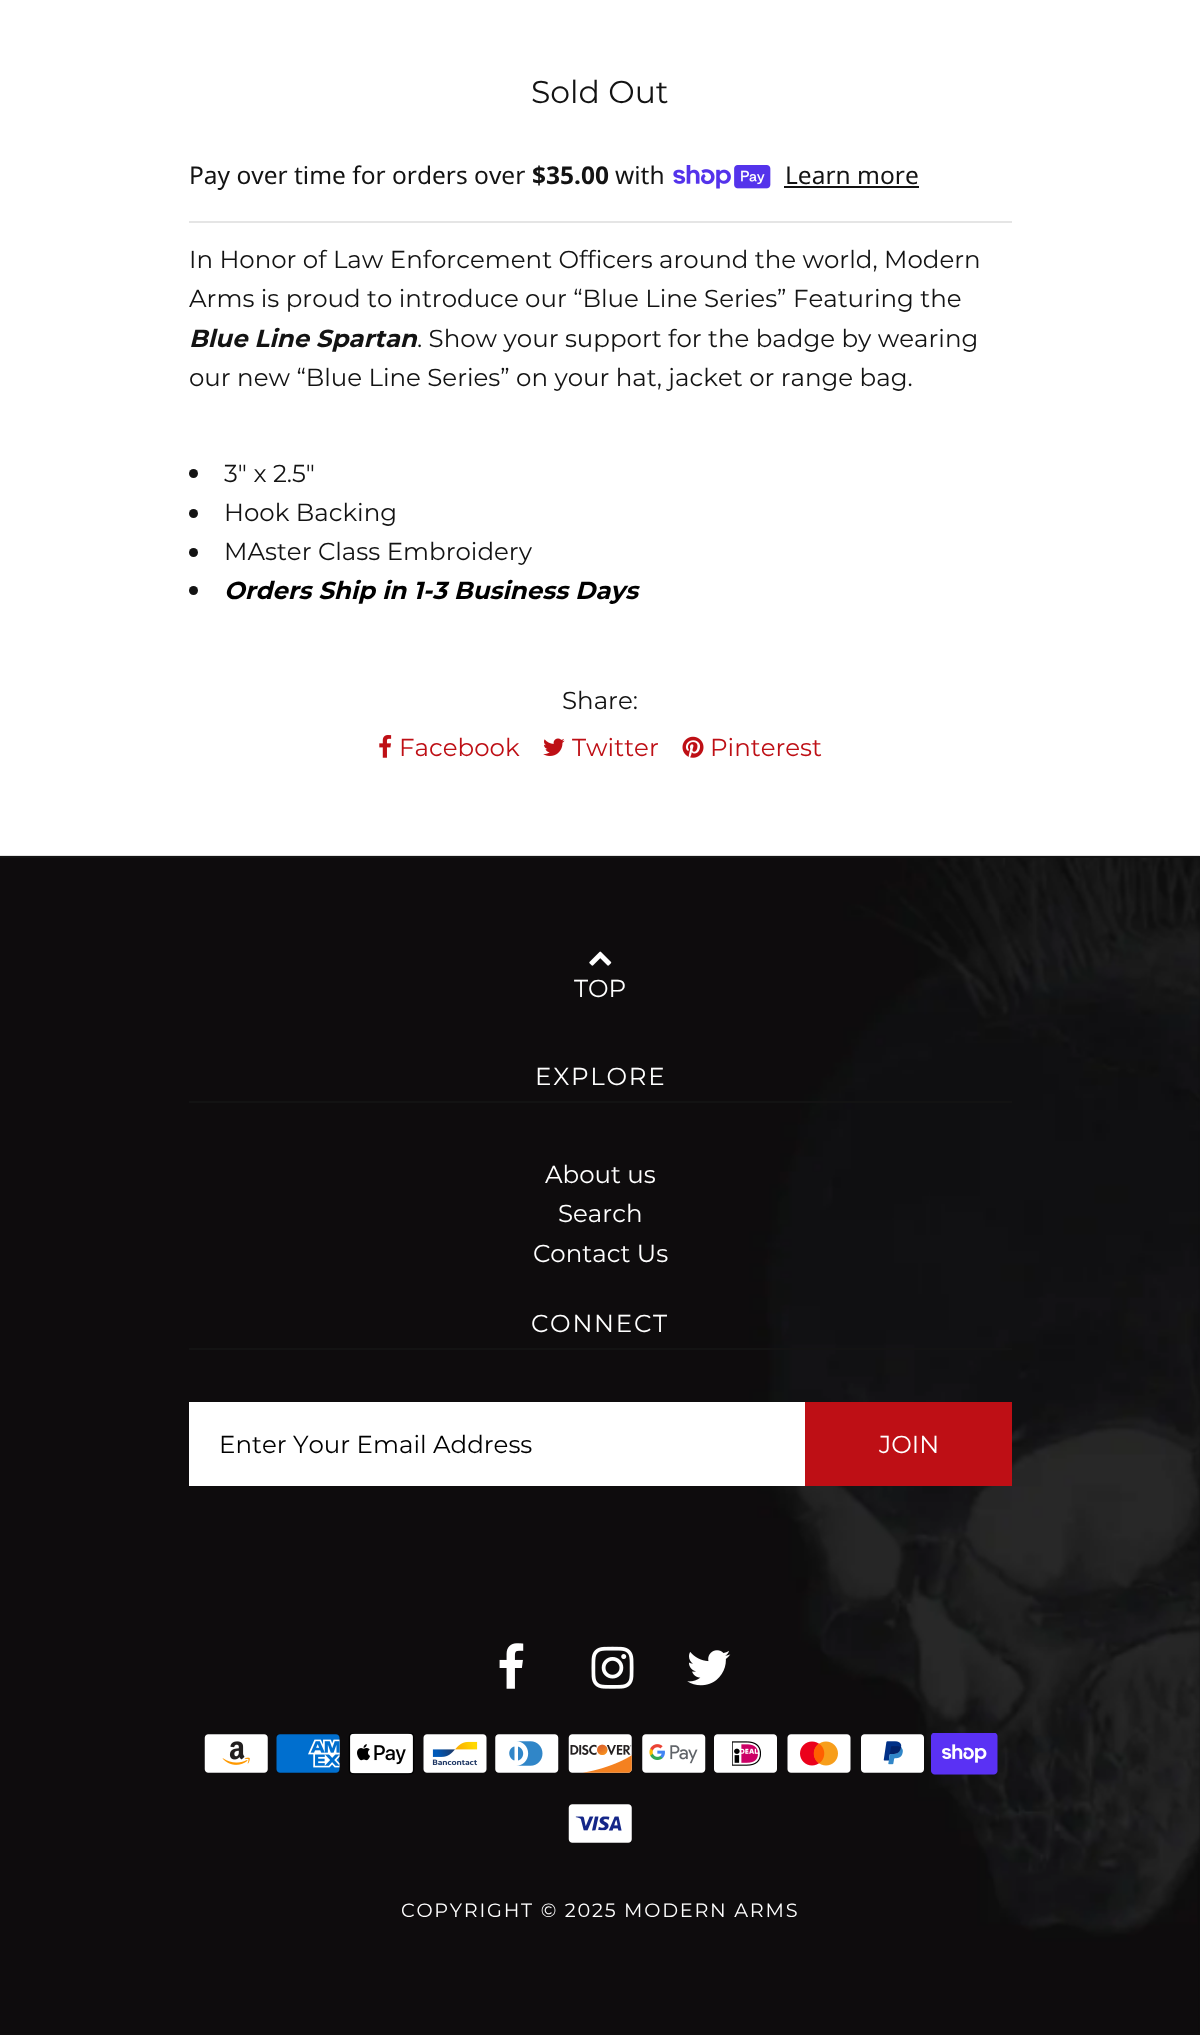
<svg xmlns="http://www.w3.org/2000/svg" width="1200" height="2035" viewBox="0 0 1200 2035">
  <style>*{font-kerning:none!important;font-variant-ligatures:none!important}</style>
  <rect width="100%" height="100%" fill="#ffffff"/>
  <text x="531" y="103" font-family="Montserrat" font-size="31.5" fill="#131313">Sold Out</text>
  <rect x="189" y="221" width="823" height="2" fill="#e5e5e5"/>
  <text x="189" y="184" font-family="Noto Sans" font-size="24.5" fill="#131313">Pay over time for orders over</text>
  <text x="532" y="184" font-family="Noto Sans" font-size="24.5" font-weight="bold" fill="#131313">$35.00</text>
  <text x="615" y="184" font-family="Noto Sans" font-size="24.5" fill="#131313">with</text>
  <image x="673" y="165" width="98" height="24" href="img1.png"/>
  <text x="785" y="184" font-family="Noto Sans" font-size="24.5" fill="#131313">Learn more</text>
  <rect x="784" y="186" width="135" height="2" fill="#131313"/>
  <text x="189" y="268" font-family="Montserrat" font-size="24.5" fill="#131313">In Honor of Law Enforcement Officers around the world, Modern</text>
  <text x="189" y="307" font-family="Montserrat" font-size="24.5" fill="#131313">Arms is proud to introduce our “Blue Line Series” Featuring the</text>
  <text x="189" y="347" font-family="Montserrat" font-size="24.5" font-weight="bold" font-style="italic" fill="#131313">Blue Line Spartan</text>
  <text x="417" y="347" font-family="Montserrat" font-size="24.5" fill="#131313">. Show your support for the badge by wearing</text>
  <text x="189" y="386" font-family="Montserrat" font-size="24.5" fill="#131313">our new “Blue Line Series” on your hat, jacket or range bag.</text>
  <circle cx="193.5" cy="473.5" r="4.5" fill="#131313"/>
  <text x="224" y="482" font-family="Montserrat" font-size="24.5" fill="#131313">3" x 2.5"</text>
  <circle cx="193.5" cy="513.5" r="4.5" fill="#131313"/>
  <text x="224" y="521" font-family="Montserrat" font-size="24.5" fill="#131313">Hook Backing</text>
  <circle cx="193.5" cy="552.5" r="4.5" fill="#131313"/>
  <text x="224" y="560" font-family="Montserrat" font-size="24.5" fill="#131313">MAster Class Embroidery</text>
  <circle cx="193.5" cy="590.5" r="4.5" fill="#131313"/>
  <text x="224" y="599" font-family="Montserrat" font-size="24.5" font-weight="bold" font-style="italic" fill="#000000">Orders Ship in 1-3 Business Days</text>
  <text x="562" y="709" font-family="Montserrat" font-size="24.5" fill="#131313">Share:</text>
  <image x="379" y="735" width="13" height="23" href="img2.png"/>
  <text x="399" y="756" font-family="Montserrat" font-size="24.5" fill="#be0f15">Facebook</text>
  <image x="543" y="738" width="22" height="18" href="img3.png"/>
  <text x="572" y="756" font-family="Montserrat" font-size="24.5" fill="#be0f15">Twitter</text>
  <image x="682" y="736" width="22" height="22" href="img4.png"/>
  <text x="710" y="756" font-family="Montserrat" font-size="24.5" fill="#be0f15">Pinterest</text>
  <rect x="0" y="858" width="1200" height="1177" fill="#131313"/>
  <image x="0" y="855" width="1200" height="1180" href="img5.png"/>
  <rect x="0" y="856" width="1200" height="2" fill="#131313"/>
  <image x="589" y="951" width="23" height="15" href="img6.png"/>
  <text x="574" y="997" font-family="Montserrat" font-size="24.5" fill="#ffffff">TOP</text>
  <rect x="189" y="1101" width="823" height="2" fill="#131313"/>
  <text x="535" y="1085" font-family="Montserrat" font-size="24.5" letter-spacing="1.75" fill="#ffffff">EXPLORE</text>
  <text x="545" y="1183" font-family="Montserrat" font-size="24.5" fill="#ffffff">About us</text>
  <text x="558" y="1222" font-family="Montserrat" font-size="24.5" fill="#ffffff">Search</text>
  <text x="533" y="1262" font-family="Montserrat" font-size="24.5" fill="#ffffff">Contact Us</text>
  <rect x="189" y="1348" width="823" height="2" fill="#131313"/>
  <text x="531" y="1332" font-family="Montserrat" font-size="24.5" letter-spacing="1.75" fill="#ffffff">CONNECT</text>
  <rect x="189" y="1402" width="616" height="84" fill="#ffffff"/>
  <text x="219" y="1453" font-family="Montserrat" font-size="24.5" fill="#000000">Enter Your Email Address</text>
  <rect x="805" y="1402" width="207" height="84" fill="#be0f15"/>
  <text x="879" y="1453" font-family="Montserrat" font-size="24.5" fill="#ffffff">JOIN</text>
  <image x="499" y="1643" width="25" height="46" href="img7.png"/>
  <image x="591" y="1646" width="43" height="43" href="img8.png"/>
  <image x="687" y="1650" width="44" height="36" href="img9.png"/>
  <image x="204" y="1734" width="64" height="39" href="img10.png"/>
  <image x="276" y="1734" width="64" height="39" href="img11.png"/>
  <image x="348" y="1733" width="67" height="42" href="img12.png"/>
  <image x="423" y="1734" width="64" height="39" href="img13.png"/>
  <image x="495" y="1734" width="64" height="39" href="img14.png"/>
  <image x="568" y="1734" width="64" height="39" href="img15.png"/>
  <image x="642" y="1734" width="64" height="39" href="img16.png"/>
  <image x="714" y="1734" width="63" height="39" href="img17.png"/>
  <image x="787" y="1734" width="64" height="39" href="img18.png"/>
  <image x="861" y="1734" width="63" height="39" href="img19.png"/>
  <image x="931" y="1733" width="67" height="42" href="img20.png"/>
  <image x="568" y="1804" width="64" height="39" href="img21.png"/>
  <text x="401" y="1917" font-family="Montserrat" font-size="19.25" letter-spacing="1.75" fill="#ffffff">COPYRIGHT © 2025 MODERN ARMS</text>
</svg>
